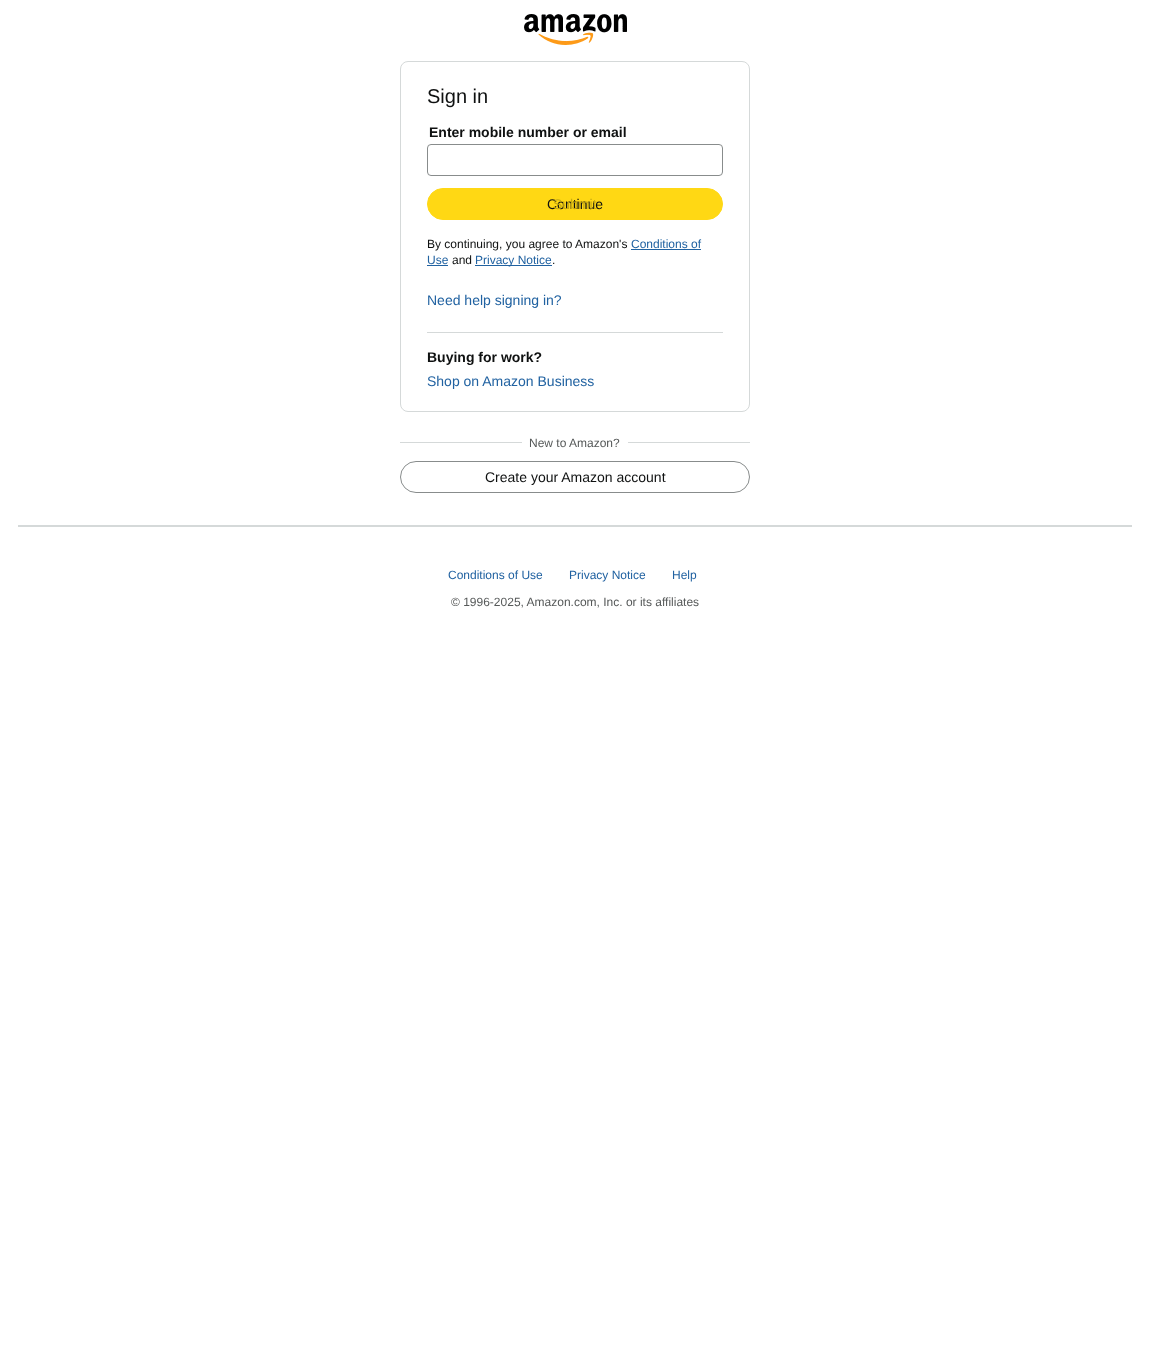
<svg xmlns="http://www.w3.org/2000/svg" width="1150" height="1360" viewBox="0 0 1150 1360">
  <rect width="100%" height="100%" fill="#ffffff"/>
  <image x="524" y="14" width="103" height="31" href="img1.png"/>
  <rect x="400.5" y="61.5" width="349" height="350" rx="7.5" fill="none" stroke="#d5d9d9"/>
  <text x="427" y="103" font-family="Liberation Sans" font-size="20" fill="#0f1111">Sign in</text>
  <text x="429" y="137" font-family="Liberation Sans" font-size="14" font-weight="bold" fill="#0f1111">Enter mobile number or email</text>
  <rect x="427.5" y="144.5" width="295" height="31" rx="3.5" fill="none" stroke="#888c8c"/>
  <rect x="427.5" y="188.5" width="295" height="31" rx="15.5" fill="#ffd814" stroke="#ffd814"/>
  <text x="547" y="209" font-family="Liberation Sans" font-size="14" fill="#0f1111">Continue</text>
  <text x="553" y="209" font-family="Liberation Sans" font-size="14" fill="#c6a913">Submit</text>
  <text x="427" y="248" font-family="Liberation Sans" font-size="12" fill="#0f1111">By continuing, you agree to Amazon's</text>
  <text x="631" y="248" font-family="Liberation Sans" font-size="12" fill="#2162a1">Conditions of</text>
  <rect x="631" y="249" width="70" height="1" fill="#2162a1"/>
  <text x="427" y="264" font-family="Liberation Sans" font-size="12" fill="#2162a1">Use</text>
  <rect x="427" y="265" width="21" height="1" fill="#2162a1"/>
  <text x="452" y="264" font-family="Liberation Sans" font-size="12" fill="#0f1111">and</text>
  <rect x="475" y="265" width="77" height="1" fill="#2162a1"/>
  <text x="475" y="264" font-family="Liberation Sans" font-size="12" fill="#2162a1">Privacy Notice</text>
  <text x="552" y="264" font-family="Liberation Sans" font-size="12" fill="#0f1111">.</text>
  <text x="427" y="305" font-family="Liberation Sans" font-size="14" fill="#2162a1">Need help signing in?</text>
  <rect x="427" y="332" width="296" height="1" fill="#d5d9d9"/>
  <text x="427" y="362" font-family="Liberation Sans" font-size="14" font-weight="bold" fill="#0f1111">Buying for work?</text>
  <text x="427" y="386" font-family="Liberation Sans" font-size="14" fill="#2162a1">Shop on Amazon Business</text>
  <rect x="400" y="442" width="350" height="1" fill="#d5d9d9"/>
  <rect x="522" y="442" width="106" height="1" fill="#ffffff"/>
  <text x="529" y="447" font-family="Liberation Sans" font-size="12" fill="#565959">New to Amazon?</text>
  <rect x="400.5" y="461.5" width="349" height="31" rx="15.5" fill="none" stroke="#888c8c"/>
  <text x="485" y="482" font-family="Liberation Sans" font-size="14" fill="#0f1111">Create your Amazon account</text>
  <rect x="18" y="525" width="1114" height="2" fill="#d5d9d9"/>
  <text x="448" y="579" font-family="Liberation Sans" font-size="12" fill="#2162a1">Conditions of Use</text>
  <text x="569" y="579" font-family="Liberation Sans" font-size="12" fill="#2162a1">Privacy Notice</text>
  <text x="672" y="579" font-family="Liberation Sans" font-size="12" fill="#2162a1">Help</text>
  <text x="451" y="606" font-family="Liberation Sans" font-size="12" fill="#565959">© 1996-2025, Amazon.com, Inc. or its affiliates</text>
</svg>
